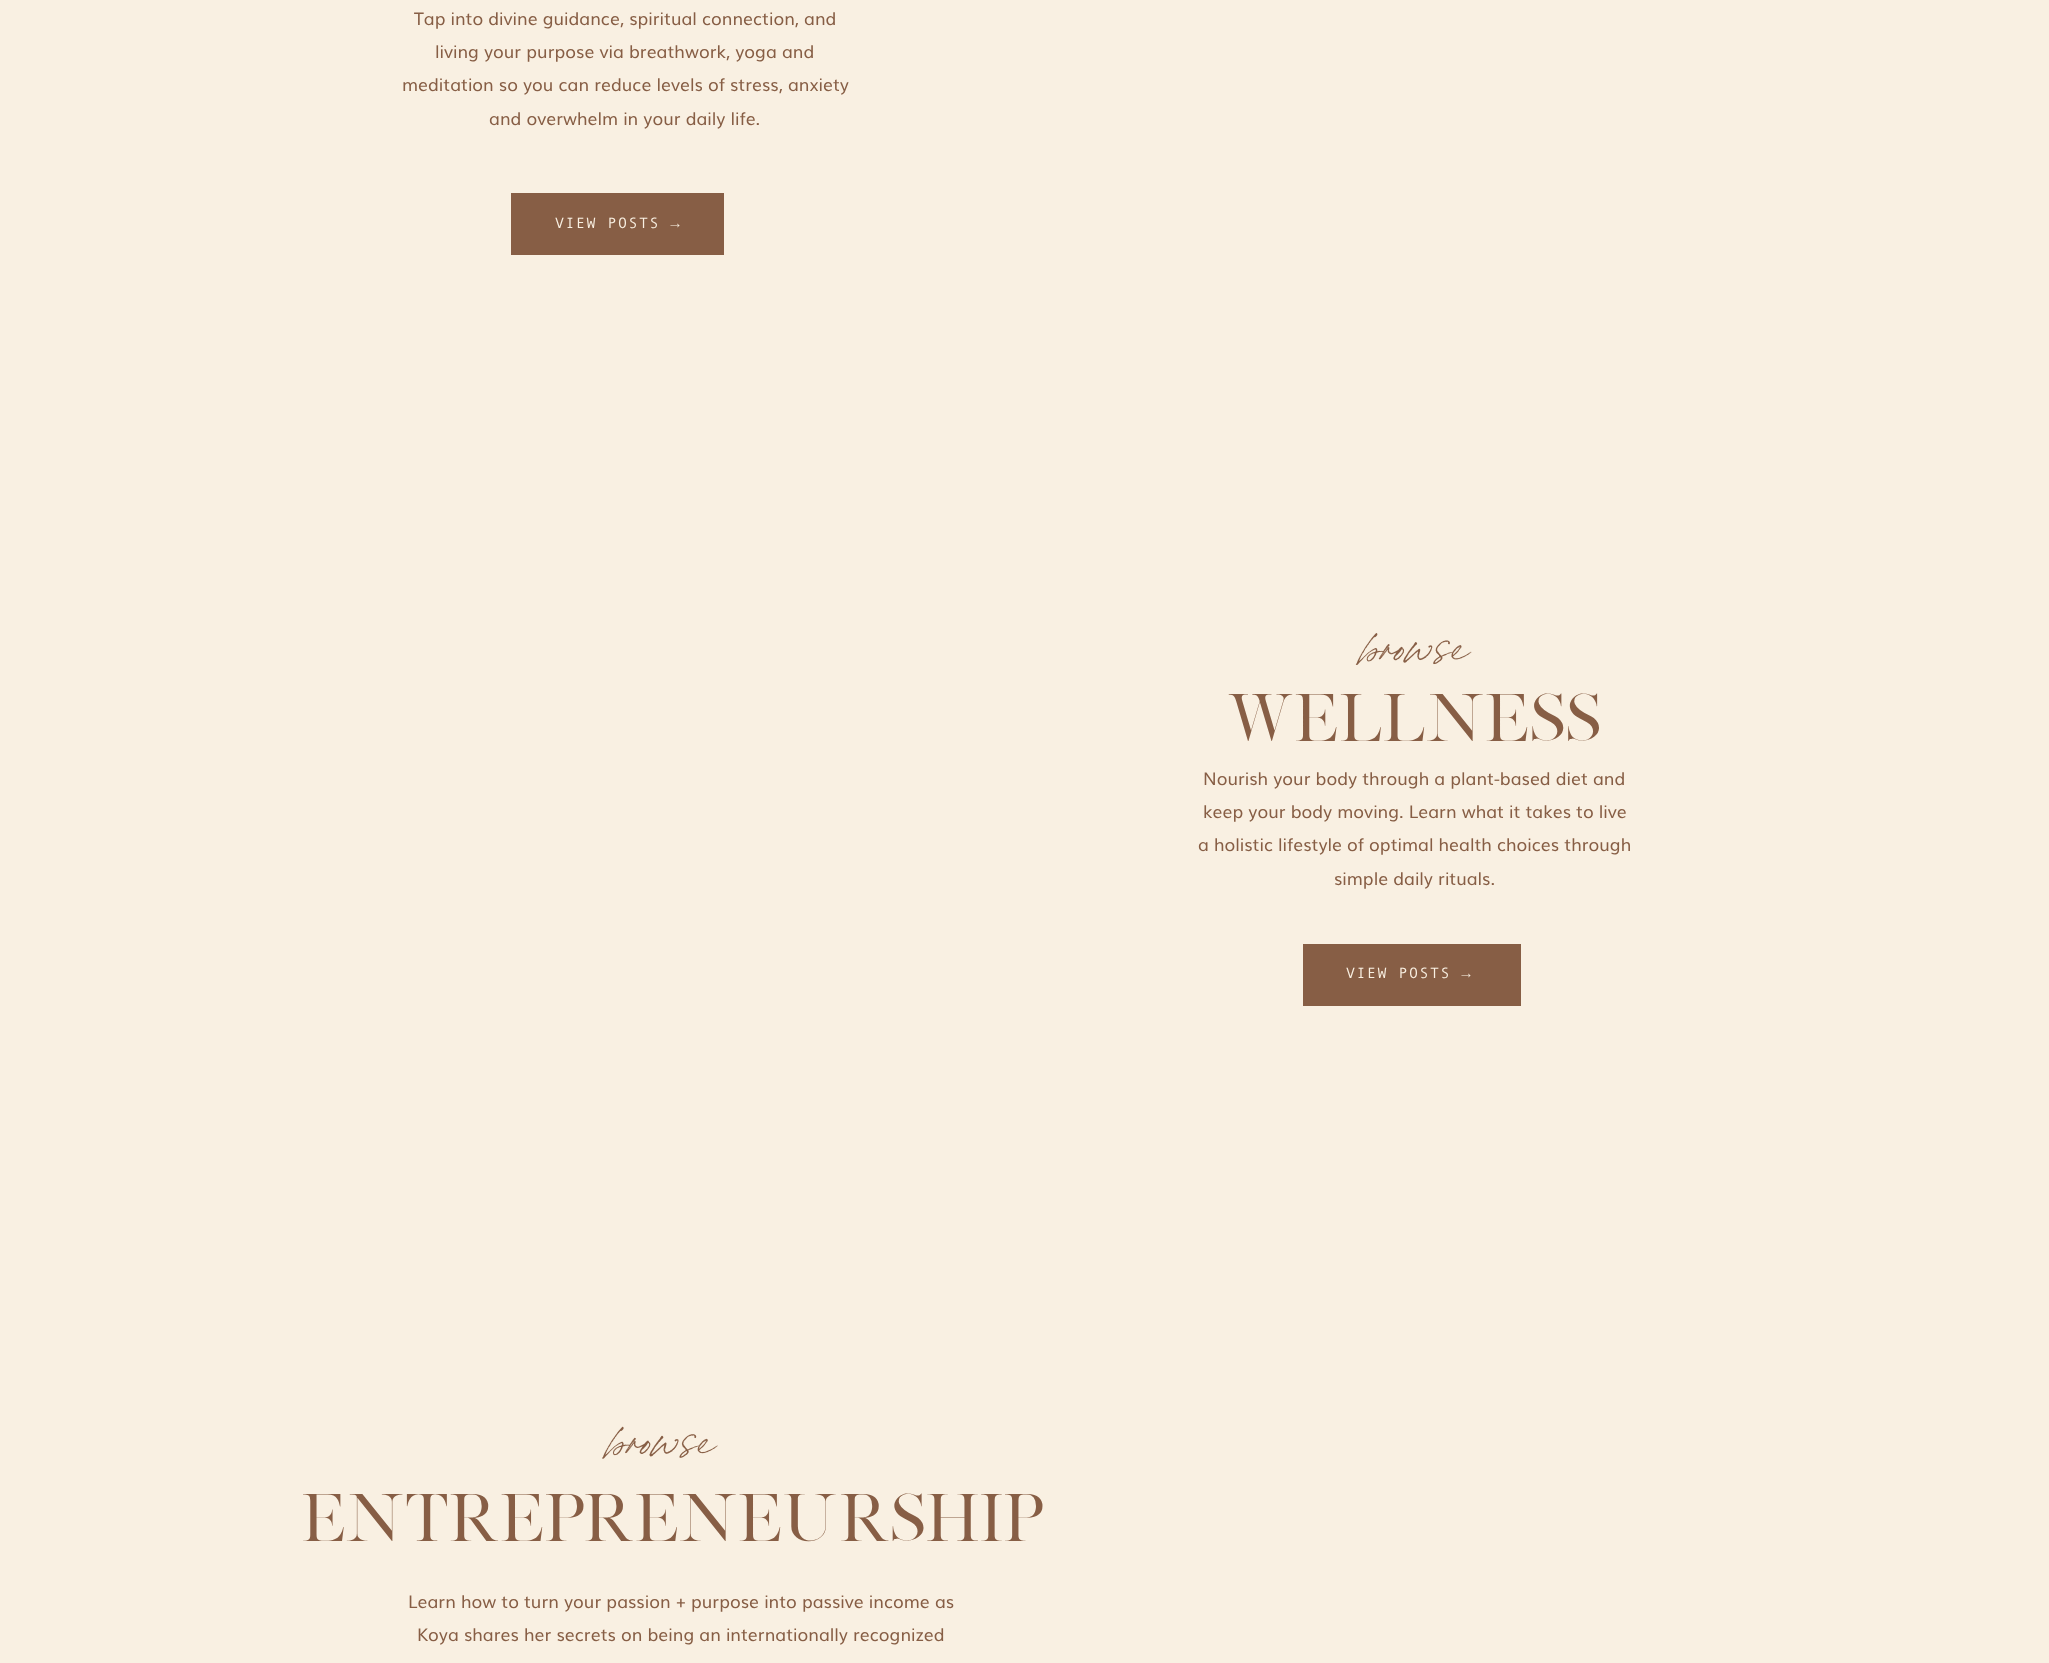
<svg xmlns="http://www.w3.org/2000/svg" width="2049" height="1663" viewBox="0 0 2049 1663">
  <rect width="100%" height="100%" fill="#f9f0e2"/>
  <text x="414" y="25" font-family="Muli" font-size="17.5" fill="#875e45">Tap into divine guidance, spiritual connection, and</text>
  <text x="435" y="58" font-family="Muli" font-size="17.5" fill="#875e45">living your purpose via breathwork, yoga and</text>
  <text x="402" y="91" font-family="Muli" font-size="17.5" fill="#875e45">meditation so you can reduce levels of stress, anxiety</text>
  <text x="489" y="125" font-family="Muli" font-size="17.5" fill="#875e45">and overwhelm in your daily life.</text>
  <rect x="511" y="193" width="213" height="62" fill="#875e45"/>
  <text x="555" y="228" font-family="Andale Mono" font-size="15" letter-spacing="1.5" fill="#f9f0e2">VIEW POSTS →</text>
  <image x="1355" y="633" width="117" height="32" href="img1.png"/>
  <text x="1227" y="741" font-family="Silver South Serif" font-size="58.75" fill="#875e45">WELLNESS</text>
  <text x="1203" y="785" font-family="Muli" font-size="17.5" fill="#875e45">Nourish your body through a plant-based diet and</text>
  <text x="1203" y="818" font-family="Muli" font-size="17.5" fill="#875e45">keep your body moving. Learn what it takes to live</text>
  <text x="1198" y="851" font-family="Muli" font-size="17.5" fill="#875e45">a holistic lifestyle of optimal health choices through</text>
  <text x="1334" y="885" font-family="Muli" font-size="17.5" fill="#875e45">simple daily rituals.</text>
  <rect x="1303" y="944" width="218" height="62" fill="#875e45"/>
  <text x="1346" y="978" font-family="Andale Mono" font-size="15" letter-spacing="1.5" fill="#f9f0e2">VIEW POSTS →</text>
  <image x="602" y="1426" width="116" height="33" href="img2.png"/>
  <text x="301" y="1541" font-family="Silver South Serif" font-size="58.75" fill="#875e45">ENTREPRENEURSHIP</text>
  <text x="408" y="1608" font-family="Muli" font-size="17.5" fill="#875e45">Learn how to turn your passion + purpose into passive income as</text>
  <text x="417" y="1641" font-family="Muli" font-size="17.5" fill="#875e45">Koya shares her secrets on being an internationally recognized</text>
</svg>
